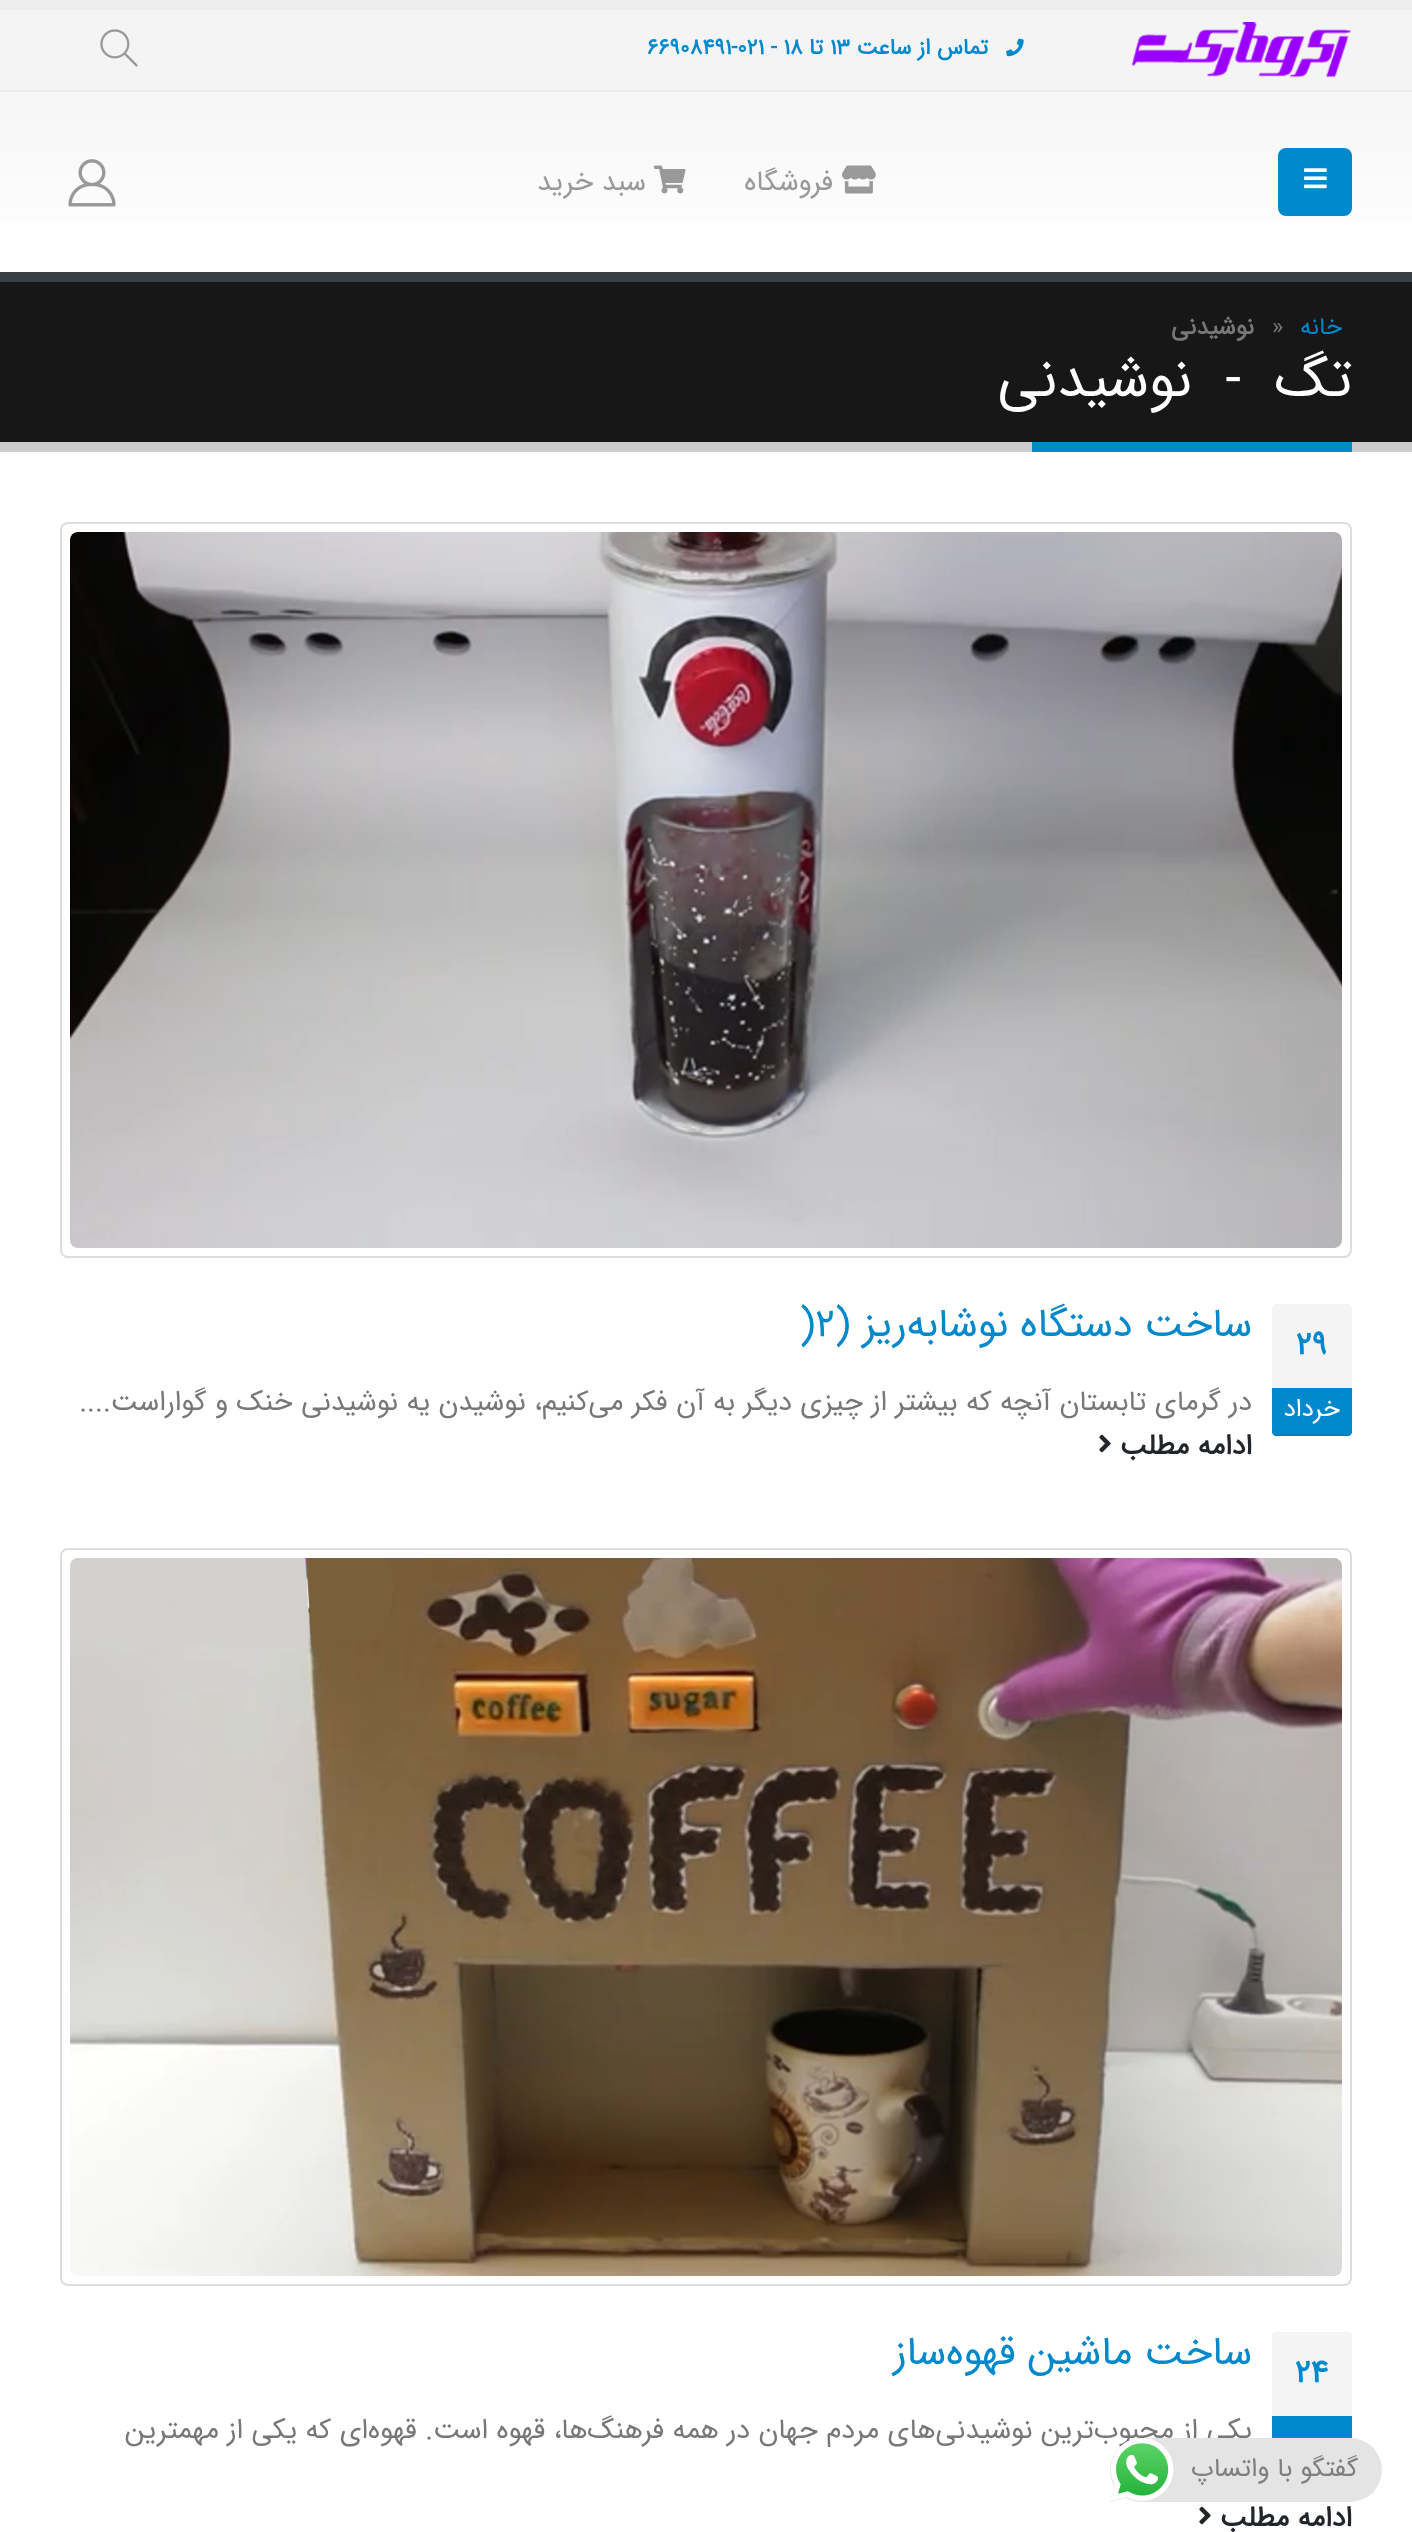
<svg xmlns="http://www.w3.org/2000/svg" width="1412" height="2532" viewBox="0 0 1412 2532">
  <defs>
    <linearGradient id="g1" gradientUnits="userSpaceOnUse" x1="706" y1="92" x2="706" y2="272"><stop offset="0" stop-color="#f6f6f6"/><stop offset="1" stop-color="#ffffff"/></linearGradient>
  </defs>
  <rect width="100%" height="100%" fill="#ffffff"/>
  <rect x="0" y="0" width="1412" height="10" fill="#ededed"/>
  <rect x="0" y="10" width="1412" height="80" fill="#f4f4f4"/>
  <rect x="0" y="90" width="1412" height="2" fill="#ededed"/>
  <image x="1132" y="22" width="219" height="56" href="img1.png"/>
  <image x="1006" y="38" width="18" height="19" href="img2.png"/>
  <text x="988" y="54" font-family="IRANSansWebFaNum" font-size="22" font-weight="bold" direction="rtl" fill="#0088cc">تماس از ساعت</text>
  <text x="830" y="54" font-family="IRANSansWebFaNum" font-size="22" font-weight="bold" fill="#0088cc">13</text>
  <text x="823" y="54" font-family="IRANSansWebFaNum" font-size="22" font-weight="bold" direction="rtl" fill="#0088cc">تا</text>
  <text x="647" y="54" font-family="IRANSansWebFaNum" font-size="22" font-weight="bold" fill="#0088cc">66908491-021 - 18</text>
  <image x="100" y="29" width="38" height="38" href="img3.png"/>
  <rect x="0" y="92" width="1412" height="130" fill="url(#g1)"/>
  <rect x="1278" y="148" width="74" height="68" rx="8" fill="#0088cc"/>
  <image x="1304" y="168" width="23" height="21" href="img4.png"/>
  <image x="842" y="165" width="34" height="29" href="img5.png"/>
  <text x="833" y="190" font-family="IRANSansWebFaNum" font-size="28" direction="rtl" fill="#999999">فروشگاه</text>
  <image x="654" y="165" width="32" height="29" href="img6.png"/>
  <text x="646" y="190" font-family="IRANSansWebFaNum" font-size="28" direction="rtl" fill="#999999">سبد خرید</text>
  <image x="68" y="159" width="48" height="48" href="img7.png"/>
  <rect x="0" y="282" width="1412" height="160" fill="#171717"/>
  <rect x="0" y="272" width="1412" height="10" fill="#384045"/>
  <rect x="0" y="442" width="1412" height="10" fill="#cccccc"/>
  <text x="1342" y="334" font-family="IRANSansWebFaNum" font-size="24" direction="rtl" fill="#0088cc">خانه</text>
  <text x="1272" y="334" font-family="IRANSansWebFaNum" font-size="24" fill="#777777">»</text>
  <text x="1254" y="334" font-family="IRANSansWebFaNum" font-size="24" font-weight="bold" direction="rtl" fill="#777777">نوشیدنی</text>
  <text x="1352" y="396" word-spacing="17" font-family="IRANSansWebFaNum" font-size="56" letter-spacing="-2.75" direction="rtl" fill="#ffffff">تگ - نوشیدنی</text>
  <rect x="1032" y="442" width="320" height="10" fill="#0088cc"/>
  <rect x="61" y="523" width="1290" height="734" rx="7" fill="none" stroke="#dddddd" stroke-width="2"/>
  <image x="70" y="532" width="1272" height="716" href="img8.png"/>
  <text x="1252" y="1336" font-family="IRANSansWebFaNum" font-size="40" direction="rtl" fill="#0088cc">ساخت دستگاه نوشابه‌ریز (</text>
  <text x="800" y="1336" font-family="IRANSansWebFaNum" font-size="40" fill="#0088cc">)2</text>
  <path d="M1276 1304H1348C1350 1304 1352 1306 1352 1308V1388H1272V1308C1272 1306 1274 1304 1276 1304Z" fill="#f4f4f4"/>
  <text x="1296" y="1354" font-family="IRANSansWebFaNum" font-size="32" font-weight="bold" fill="#0088cc">29</text>
  <path d="M1272 1388H1352V1432C1352 1434 1350 1436 1348 1436H1276C1274 1436 1272 1434 1272 1432Z" fill="#0088cc"/>
  <path d="M1272 1430C1272 1439 1280 1436 1288 1436H1336C1344 1436 1352 1439 1352 1430C1352 1432 1350 1434 1348 1434H1276C1274 1434 1272 1432 1272 1430Z" fill="#000000" fill-opacity="0.07"/>
  <text x="1340" y="1416" font-family="IRANSansWebFaNum" font-size="25" direction="rtl" fill="#ffffff">خرداد</text>
  <text x="1252" y="1410" font-family="IRANSansWebFaNum" font-size="28" direction="rtl" fill="#777777">در گرمای تابستان آنچه که بیشتر از چیزی دیگر به آن فکر می‌کنیم، نوشیدن یه نوشیدنی خنک و گواراست....</text>
  <text x="1252" y="1454" font-family="IRANSansWebFaNum" font-size="28" font-weight="bold" direction="rtl" fill="#222529">ادامه مطلب</text>
  <image x="1099" y="1434" width="12" height="19" href="img9.png"/>
  <rect x="61" y="1549" width="1290" height="736" rx="7" fill="none" stroke="#dddddd" stroke-width="2"/>
  <image x="70" y="1558" width="1272" height="718" href="img10.png"/>
  <path d="M1276 2332H1348C1350 2332 1352 2334 1352 2336V2416H1272V2336C1272 2334 1274 2332 1276 2332Z" fill="#f4f4f4"/>
  <text x="1295" y="2382" font-family="IRANSansWebFaNum" font-size="32" font-weight="bold" fill="#0088cc">24</text>
  <rect x="1272" y="2416" width="80" height="23" fill="#0088cc"/>
  <text x="1252" y="2364" font-family="IRANSansWebFaNum" font-size="40" direction="rtl" fill="#0088cc">ساخت ماشین قهوه‌ساز</text>
  <text x="1252" y="2438" font-family="IRANSansWebFaNum" font-size="28" direction="rtl" fill="#777777">یکی از محبوب‌ترین نوشیدنی‌های مردم جهان در همه فرهنگ‌ها، قهوه است. قهوه‌ای که یکی از مهمترین</text>
  <text x="1352" y="2526" font-family="IRANSansWebFaNum" font-size="28" font-weight="bold" direction="rtl" fill="#222529">ادامه مطلب</text>
  <image x="1199" y="2506" width="12" height="19" href="img9.png"/>
  <rect x="1110" y="2438" width="272" height="64" rx="32" fill="#e4e4e4"/>
  <text x="1358" y="2476" font-family="IRANSansWebFaNum" font-size="26" direction="rtl" fill="#7f7d7d">گفتگو با واتساپ</text>
  <image x="1110" y="2438" width="64" height="64" href="img11.png"/>
</svg>
